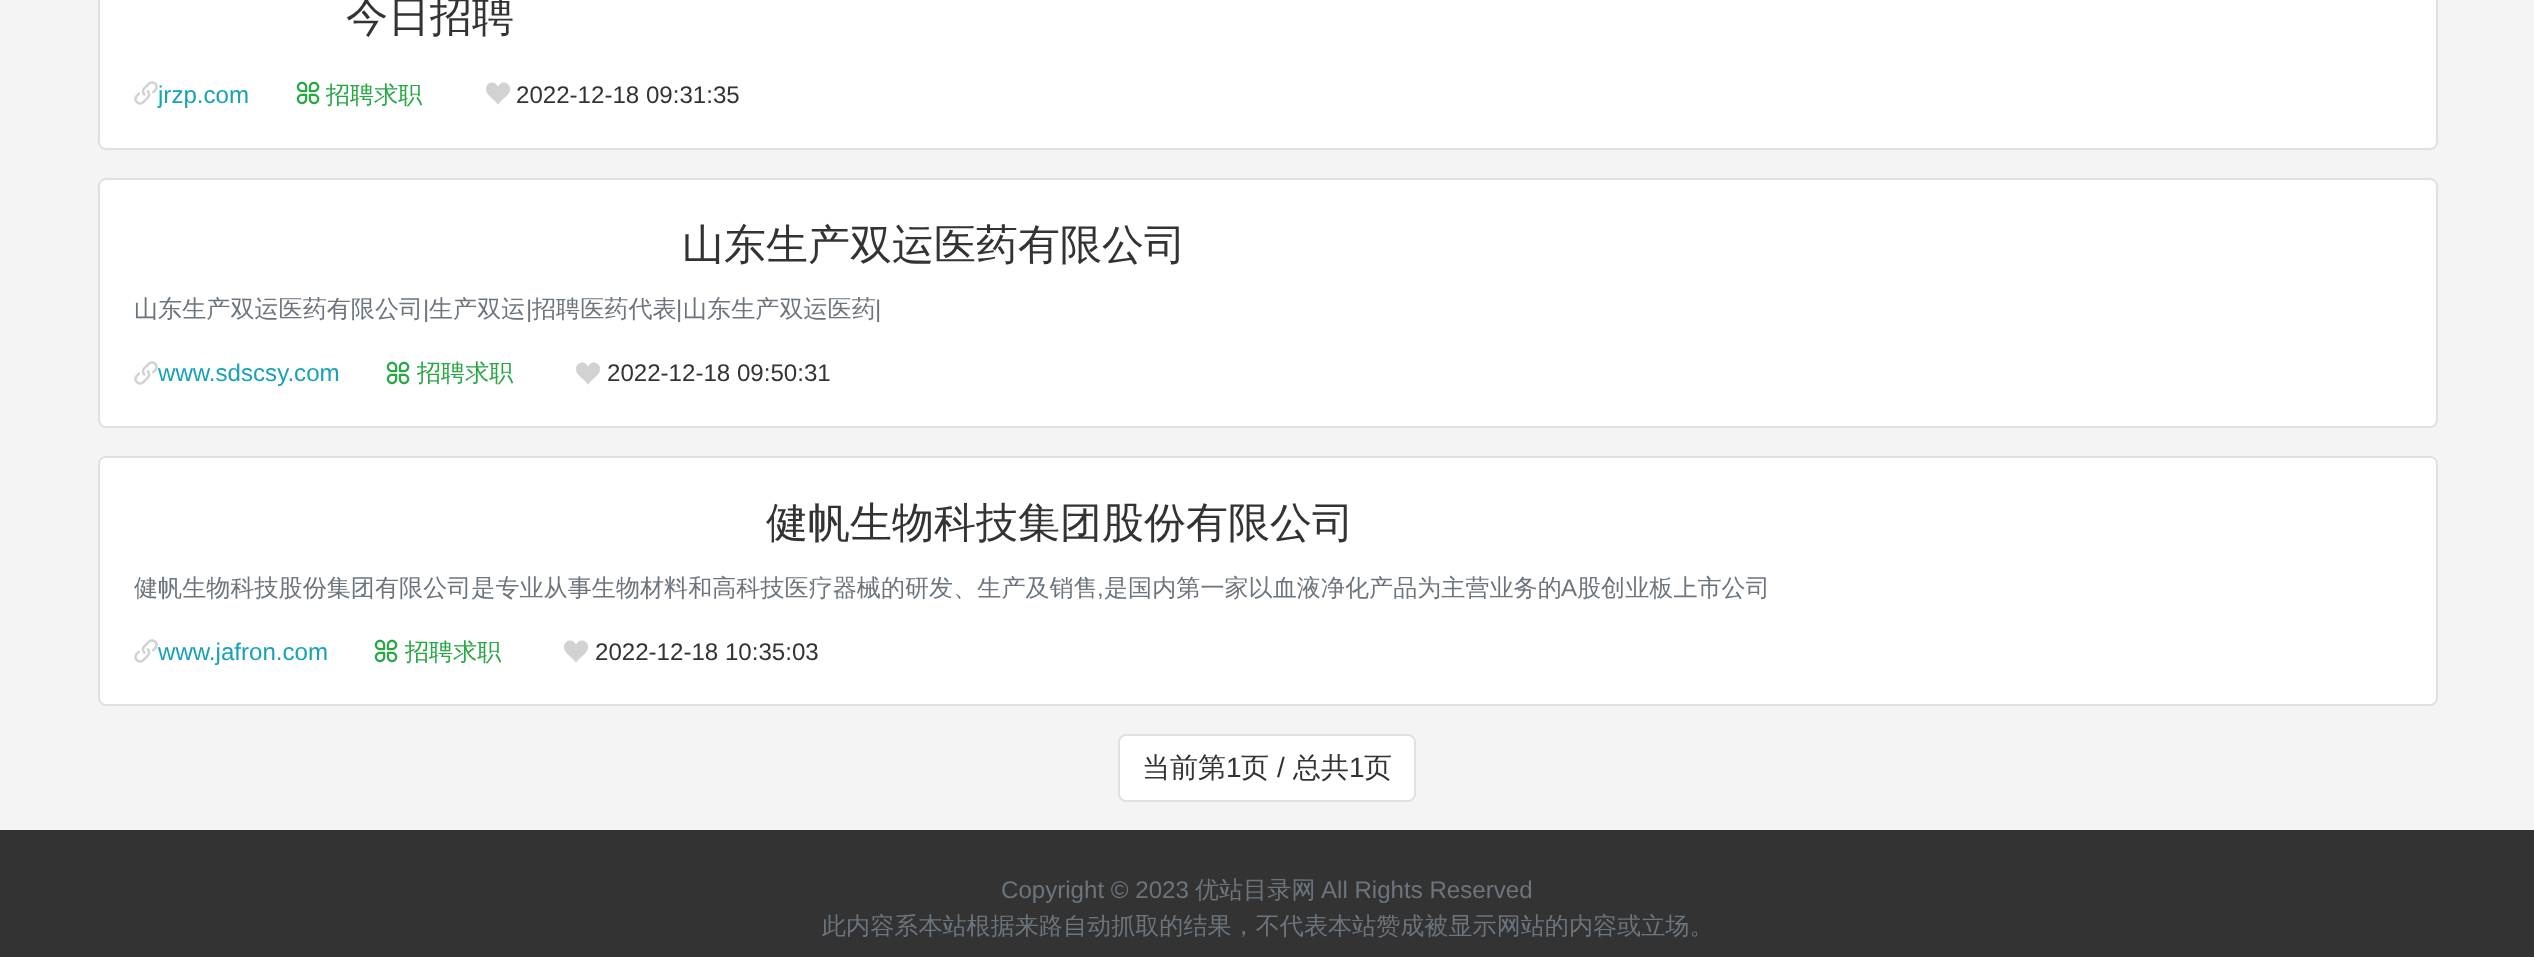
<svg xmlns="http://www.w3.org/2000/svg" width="2534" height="957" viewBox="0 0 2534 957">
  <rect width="100%" height="100%" fill="#f4f4f4"/>
  <rect x="98" y="-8" width="2340" height="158" rx="8" fill="#ffffff"/>
  <rect x="99" y="-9" width="2338" height="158" rx="7" fill="none" stroke="#000000" stroke-opacity="0.12" stroke-width="2"/>
  <text x="346" y="31" font-family="WenQuanYi Zen Hei" font-size="42" font-weight="500" fill="#333333">今日招聘</text>
  <image x="134" y="81" width="24" height="24" href="img1.png"/>
  <text x="158" y="103" font-family="Liberation Sans" font-size="24.1" fill="#17a2b8">jrzp.com</text>
  <image x="296" y="81" width="24" height="24" href="img2.png"/>
  <text x="326" y="103" font-family="WenQuanYi Zen Hei" font-size="24.1" font-weight="500" fill="#28a745">招聘求职</text>
  <image x="486" y="82" width="24" height="23" href="img3.png"/>
  <text x="516" y="103" font-family="Liberation Sans" font-size="24.1" fill="#333333">2022-12-18 09:31:35</text>
  <rect x="98" y="178" width="2340" height="250" rx="8" fill="#ffffff"/>
  <rect x="99" y="179" width="2338" height="248" rx="7" fill="none" stroke="#000000" stroke-opacity="0.12" stroke-width="2"/>
  <text x="682" y="259" font-family="WenQuanYi Zen Hei" font-size="42" font-weight="500" fill="#333333">山东生产双运医药有限公司</text>
  <text x="134" y="317" font-family="WenQuanYi Zen Hei" font-size="24.1" font-weight="500" fill="#6c757d">山东生产双运医药有限公司</text>
  <text x="423" y="317" font-family="Liberation Sans" font-size="24.1" fill="#6c757d">|</text>
  <text x="429" y="317" font-family="WenQuanYi Zen Hei" font-size="24.1" font-weight="500" fill="#6c757d">生产双运</text>
  <text x="526" y="317" font-family="Liberation Sans" font-size="24.1" fill="#6c757d">|</text>
  <text x="532" y="317" font-family="WenQuanYi Zen Hei" font-size="24.1" font-weight="500" fill="#6c757d">招聘医药代表</text>
  <text x="676" y="317" font-family="Liberation Sans" font-size="24.1" fill="#6c757d">|</text>
  <text x="683" y="317" font-family="WenQuanYi Zen Hei" font-size="24.1" font-weight="500" fill="#6c757d">山东生产双运医药</text>
  <text x="875" y="317" font-family="Liberation Sans" font-size="24.1" fill="#6c757d">|</text>
  <image x="134" y="361" width="24" height="24" href="img1.png"/>
  <text x="158" y="381" font-family="Liberation Sans" font-size="24.1" fill="#17a2b8">www.sdscsy.com</text>
  <image x="386" y="361" width="24" height="24" href="img2.png"/>
  <text x="417" y="381" font-family="WenQuanYi Zen Hei" font-size="24.1" font-weight="500" fill="#28a745">招聘求职</text>
  <image x="576" y="362" width="24" height="23" href="img3.png"/>
  <text x="607" y="381" font-family="Liberation Sans" font-size="24.1" fill="#333333">2022-12-18 09:50:31</text>
  <rect x="98" y="456" width="2340" height="250" rx="8" fill="#ffffff"/>
  <rect x="99" y="457" width="2338" height="248" rx="7" fill="none" stroke="#000000" stroke-opacity="0.12" stroke-width="2"/>
  <text x="766" y="537" font-family="WenQuanYi Zen Hei" font-size="42" font-weight="500" fill="#333333">健帆生物科技集团股份有限公司</text>
  <text x="134" y="596" font-family="WenQuanYi Zen Hei" font-size="24.1" font-weight="500" fill="#6c757d">健帆生物科技股份集团有限公司是专业从事生物材料和高科技医疗器械的研发、生产及销售</text>
  <text x="1097" y="596" font-family="Liberation Sans" font-size="24.1" fill="#6c757d">,</text>
  <text x="1104" y="596" font-family="WenQuanYi Zen Hei" font-size="24.1" font-weight="500" fill="#6c757d">是国内第一家以血液净化产品为主营业务的</text>
  <text x="1561" y="596" font-family="Liberation Sans" font-size="24.1" fill="#6c757d">A</text>
  <text x="1577" y="596" font-family="WenQuanYi Zen Hei" font-size="24.1" font-weight="500" fill="#6c757d">股创业板上市公司</text>
  <image x="134" y="639" width="24" height="24" href="img1.png"/>
  <text x="158" y="660" font-family="Liberation Sans" font-size="24.1" fill="#17a2b8">www.jafron.com</text>
  <image x="374" y="639" width="24" height="24" href="img2.png"/>
  <text x="405" y="660" font-family="WenQuanYi Zen Hei" font-size="24.1" font-weight="500" fill="#28a745">招聘求职</text>
  <image x="564" y="640" width="24" height="23" href="img3.png"/>
  <text x="595" y="660" font-family="Liberation Sans" font-size="24.1" fill="#333333">2022-12-18 10:35:03</text>
  <rect x="1119" y="735" width="296" height="66" rx="7" fill="#ffffff" stroke="#dee2e6" stroke-width="2"/>
  <text x="1142" y="777" font-family="WenQuanYi Zen Hei" font-size="28" font-weight="500" fill="#333333">当前第</text>
  <text x="1226" y="777" font-family="Liberation Sans" font-size="28" fill="#333333">1</text>
  <text x="1241" y="777" font-family="WenQuanYi Zen Hei" font-size="28" font-weight="500" fill="#333333">页</text>
  <text x="1277" y="777" font-family="Liberation Sans" font-size="28" fill="#333333">/</text>
  <text x="1293" y="777" font-family="WenQuanYi Zen Hei" font-size="28" font-weight="500" fill="#333333">总共</text>
  <text x="1349" y="777" font-family="Liberation Sans" font-size="28" fill="#333333">1</text>
  <text x="1364" y="777" font-family="WenQuanYi Zen Hei" font-size="28" font-weight="500" fill="#333333">页</text>
  <rect x="0" y="830" width="2534" height="127" fill="#333333"/>
  <text x="1001" y="898" font-family="Liberation Sans" font-size="24.1" fill="#6c757d">Copyright © 2023</text>
  <text x="1195" y="898" font-family="WenQuanYi Zen Hei" font-size="24.1" font-weight="500" fill="#6c757d">优站目录网</text>
  <text x="1321" y="898" font-family="Liberation Sans" font-size="24.1" fill="#6c757d">All Rights Reserved</text>
  <text x="822" y="934" font-family="WenQuanYi Zen Hei" font-size="24.1" font-weight="500" fill="#6c757d">此内容系本站根据来路自动抓取的结果，不代表本站赞成被显示网站的内容或立场。</text>
</svg>
